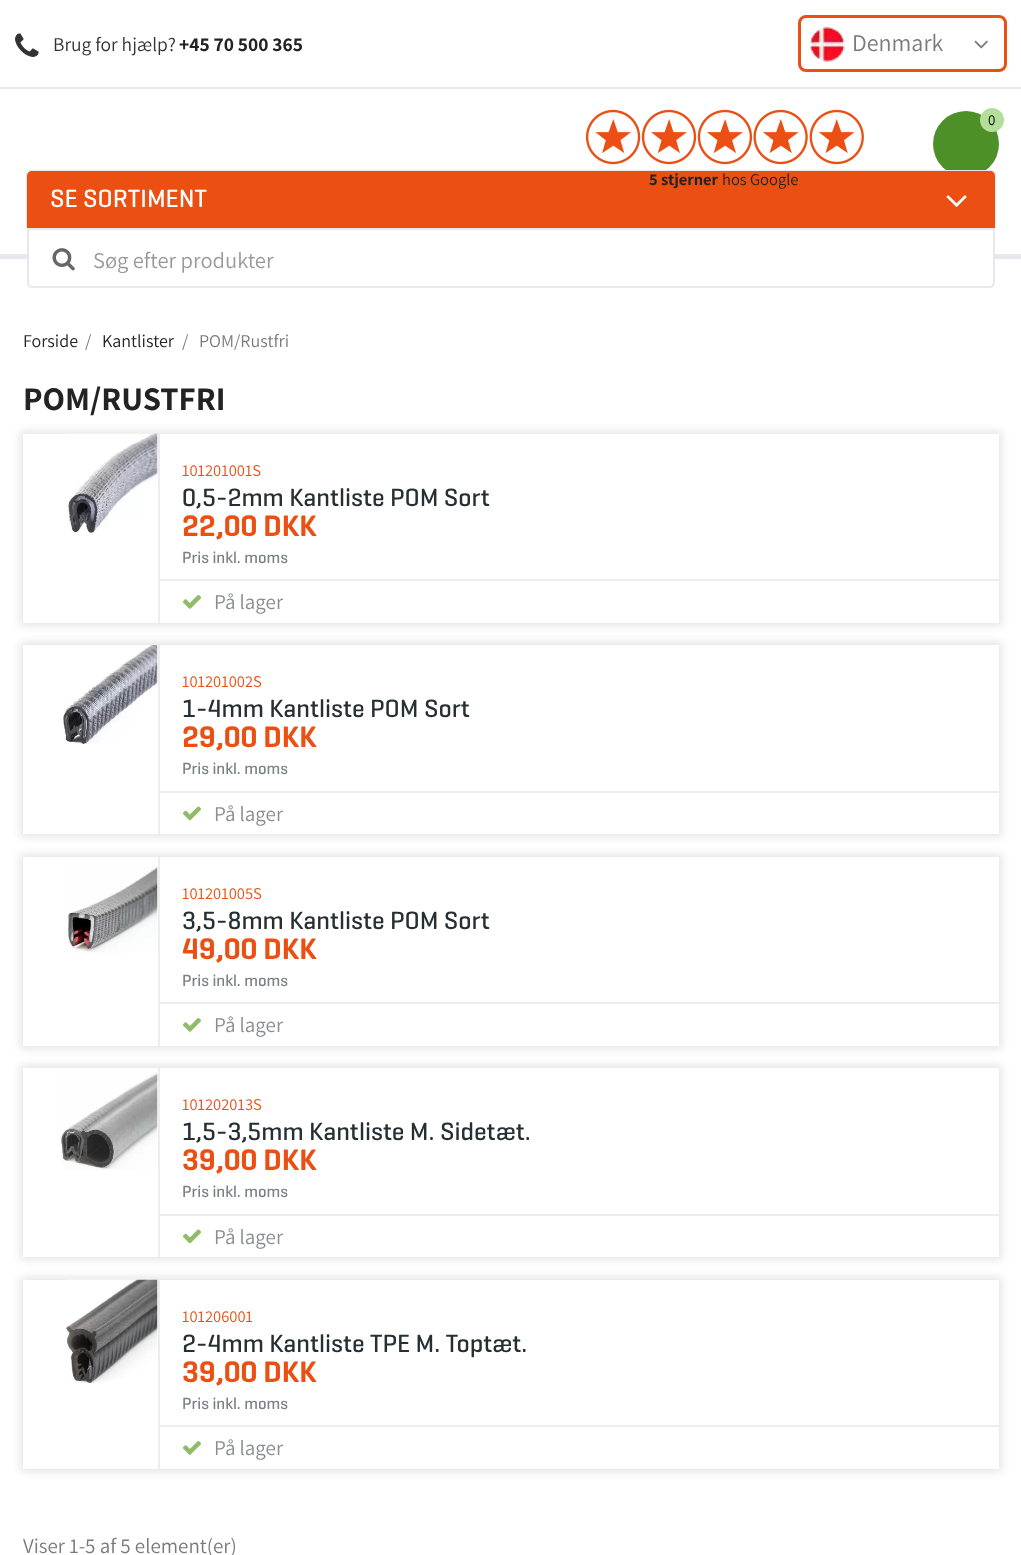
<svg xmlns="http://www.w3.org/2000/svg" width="1021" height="1555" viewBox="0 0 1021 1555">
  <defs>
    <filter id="blur1" x="-50%" y="-200%" width="200%" height="500%"><feGaussianBlur stdDeviation="4"/></filter>
    <clipPath id="clip1"><path d="M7 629H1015V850H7ZM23 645H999V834H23Z" clip-rule="evenodd"/></clipPath>
    <clipPath id="clip2"><path d="M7 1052H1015V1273H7ZM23 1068H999V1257H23Z" clip-rule="evenodd"/></clipPath>
  </defs>
  <rect width="100%" height="100%" fill="#ffffff"/>
  <rect x="0" y="254" width="1021" height="5" fill="#e5e9ee"/>
  <rect x="0" y="87" width="1021" height="2" fill="#e7eaee"/>
  <image x="15" y="33" width="24" height="24" href="img1.png"/>
  <text x="53" y="51" font-family="Assistant" font-size="19.5" fill="#333333">Brug for hjælp?</text>
  <text x="179" y="51" font-family="Assistant" font-size="19.5" font-weight="bold" fill="#232323">+45 70 500 365</text>
  <rect x="799.5" y="16.5" width="206" height="54" rx="6.5" fill="none" stroke="#eb4f12" stroke-width="3"/>
  <image x="809" y="26" width="36" height="36" href="img2.png"/>
  <text x="852" y="51" font-family="Assistant" font-size="24" fill="#7a7a7a">Denmark</text>
  <image x="974" y="40" width="14" height="9" href="img3.png"/>
  <circle cx="966" cy="144" r="33" fill="#4d9028"/>
  <circle cx="992" cy="120" r="12" fill="#b3df9b"/>
  <text x="988" y="125" font-family="Assistant" font-size="15" fill="#000000">0</text>
  <image x="585" y="109" width="279" height="56" href="img4.png"/>
  <path d="M30 170H992C994 170 996 172 996 174V228H26V174C26 172 28 170 30 170ZM30 171H992C993 171 994 172 994 174V228H27V174C27 172 28 171 30 171Z" fill="#e5e9ee" fill-rule="evenodd"/>
  <path d="M32 171H990C993 171 995 173 995 176V228H27V176C27 173 29 171 32 171Z" fill="#eb4f12"/>
  <text x="649" y="185" font-family="Assistant" font-size="16.5" font-weight="bold" fill="#232323">5 stjerner</text>
  <text x="722" y="185" font-family="Assistant" font-size="16.5" fill="#232323">hos Google</text>
  <text x="50" y="207" font-family="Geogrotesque" font-size="25.5" font-weight="500" fill="#ffffff">SE SORTIMENT</text>
  <image x="946" y="195" width="21" height="12" href="img5.png"/>
  <path d="M28 229H994V283C994 285 992 287 990 287H32C30 287 28 285 28 283Z" fill="#ffffff" stroke="#e5e9ee" stroke-width="2"/>
  <image x="52" y="248" width="23" height="23" href="img6.png"/>
  <text x="93" y="268" font-family="Assistant" font-size="22.5" fill="#999999">Søg efter produkter</text>
  <text x="23" y="347" font-family="Assistant" font-size="18" fill="#232323">Forside</text>
  <text x="85" y="347" font-family="Assistant" font-size="18" fill="#7a7a7a">/</text>
  <text x="102" y="347" font-family="Assistant" font-size="18" fill="#232323">Kantlister</text>
  <text x="182" y="347" font-family="Assistant" font-size="18" fill="#7a7a7a">/</text>
  <text x="199" y="347" font-family="Assistant" font-size="18" fill="#7a7a7a">POM/Rustfri</text>
  <text x="23" y="410" font-family="Assistant" font-size="33" font-weight="bold" fill="#232323">POM/RUSTFRI</text>
  <rect x="20" y="431" width="982" height="195" fill="#000000" fill-opacity="0.1" filter="url(#blur1)"/>
  <rect x="23" y="434" width="976" height="189" fill="#ffffff"/>
  <image x="68" y="433" width="90" height="100" href="img7.png"/>
  <rect x="158" y="434" width="2" height="189" fill="#ededed"/>
  <text x="182" y="476" font-family="Assistant" font-size="16.5" fill="#eb4f12">101201001S</text>
  <text x="182" y="506" font-family="Geogrotesque" font-size="25.5" font-weight="500" fill="#262f32">0,5-2mm Kantliste POM Sort</text>
  <text x="182" y="536" font-family="Geogrotesque" font-size="30" font-weight="600" fill="#eb4f12">22,00 DKK</text>
  <text x="182" y="563" font-family="Geogrotesque" font-size="16.5" font-weight="500" fill="#7a8285">Pris inkl. moms</text>
  <rect x="159" y="579" width="840" height="2" fill="#ededed"/>
  <image x="182" y="594" width="20" height="15" href="img8.png"/>
  <text x="214" y="609" font-family="Assistant" font-size="21" fill="#898d90">På lager</text>
  <g clip-path="url(#clip1)">
    <rect x="20" y="642" width="982" height="195" fill="#000000" fill-opacity="0.1" filter="url(#blur1)"/>
  </g>
  <image x="63" y="645" width="95" height="99" href="img9.png"/>
  <rect x="158" y="645" width="2" height="189" fill="#ededed"/>
  <text x="182" y="687" font-family="Assistant" font-size="16.5" fill="#eb4f12">101201002S</text>
  <text x="182" y="717" font-family="Geogrotesque" font-size="25.5" font-weight="500" fill="#262f32">1-4mm Kantliste POM Sort</text>
  <text x="182" y="747" font-family="Geogrotesque" font-size="30" font-weight="600" fill="#eb4f12">29,00 DKK</text>
  <text x="182" y="774" font-family="Geogrotesque" font-size="16.5" font-weight="500" fill="#7a8285">Pris inkl. moms</text>
  <rect x="159" y="791" width="840" height="2" fill="#ededed"/>
  <image x="182" y="806" width="20" height="15" href="img10.png"/>
  <text x="214" y="821" font-family="Assistant" font-size="21" fill="#898d90">På lager</text>
  <rect x="20" y="854" width="982" height="195" fill="#000000" fill-opacity="0.1" filter="url(#blur1)"/>
  <rect x="23" y="857" width="976" height="189" fill="#ffffff"/>
  <image x="68" y="866" width="90" height="87" href="img11.png"/>
  <rect x="158" y="857" width="2" height="189" fill="#ededed"/>
  <text x="182" y="899" font-family="Assistant" font-size="16.5" fill="#eb4f12">101201005S</text>
  <text x="182" y="929" font-family="Geogrotesque" font-size="25.5" font-weight="500" fill="#262f32">3,5-8mm Kantliste POM Sort</text>
  <text x="182" y="959" font-family="Geogrotesque" font-size="30" font-weight="600" fill="#eb4f12">49,00 DKK</text>
  <text x="182" y="986" font-family="Geogrotesque" font-size="16.5" font-weight="500" fill="#7a8285">Pris inkl. moms</text>
  <rect x="159" y="1002" width="840" height="2" fill="#ededed"/>
  <image x="182" y="1017" width="20" height="15" href="img8.png"/>
  <text x="214" y="1032" font-family="Assistant" font-size="21" fill="#898d90">På lager</text>
  <g clip-path="url(#clip2)">
    <rect x="20" y="1065" width="982" height="195" fill="#000000" fill-opacity="0.1" filter="url(#blur1)"/>
  </g>
  <image x="61" y="1072" width="97" height="98" href="img12.png"/>
  <rect x="158" y="1068" width="2" height="189" fill="#ededed"/>
  <text x="182" y="1110" font-family="Assistant" font-size="16.5" fill="#eb4f12">101202013S</text>
  <text x="182" y="1140" font-family="Geogrotesque" font-size="25.5" font-weight="500" fill="#262f32">1,5-3,5mm Kantliste M. Sidetæt.</text>
  <text x="182" y="1170" font-family="Geogrotesque" font-size="30" font-weight="600" fill="#eb4f12">39,00 DKK</text>
  <text x="182" y="1197" font-family="Geogrotesque" font-size="16.5" font-weight="500" fill="#7a8285">Pris inkl. moms</text>
  <rect x="159" y="1214" width="840" height="2" fill="#ededed"/>
  <image x="182" y="1229" width="20" height="15" href="img10.png"/>
  <text x="214" y="1244" font-family="Assistant" font-size="21" fill="#898d90">På lager</text>
  <rect x="20" y="1277" width="982" height="195" fill="#000000" fill-opacity="0.1" filter="url(#blur1)"/>
  <rect x="23" y="1280" width="976" height="189" fill="#ffffff"/>
  <image x="66" y="1279" width="92" height="104" href="img13.png"/>
  <rect x="158" y="1280" width="2" height="189" fill="#ededed"/>
  <text x="182" y="1322" font-family="Assistant" font-size="16.5" fill="#eb4f12">101206001</text>
  <text x="182" y="1352" font-family="Geogrotesque" font-size="25.5" font-weight="500" fill="#262f32">2-4mm Kantliste TPE M. Toptæt.</text>
  <text x="182" y="1382" font-family="Geogrotesque" font-size="30" font-weight="600" fill="#eb4f12">39,00 DKK</text>
  <text x="182" y="1409" font-family="Geogrotesque" font-size="16.5" font-weight="500" fill="#7a8285">Pris inkl. moms</text>
  <rect x="159" y="1425" width="840" height="2" fill="#ededed"/>
  <image x="182" y="1440" width="20" height="15" href="img8.png"/>
  <text x="214" y="1455" font-family="Assistant" font-size="21" fill="#898d90">På lager</text>
  <text x="23" y="1553" font-family="Assistant" font-size="21" fill="#7a7a7a">Viser 1-5 af 5 element(er)</text>
</svg>
